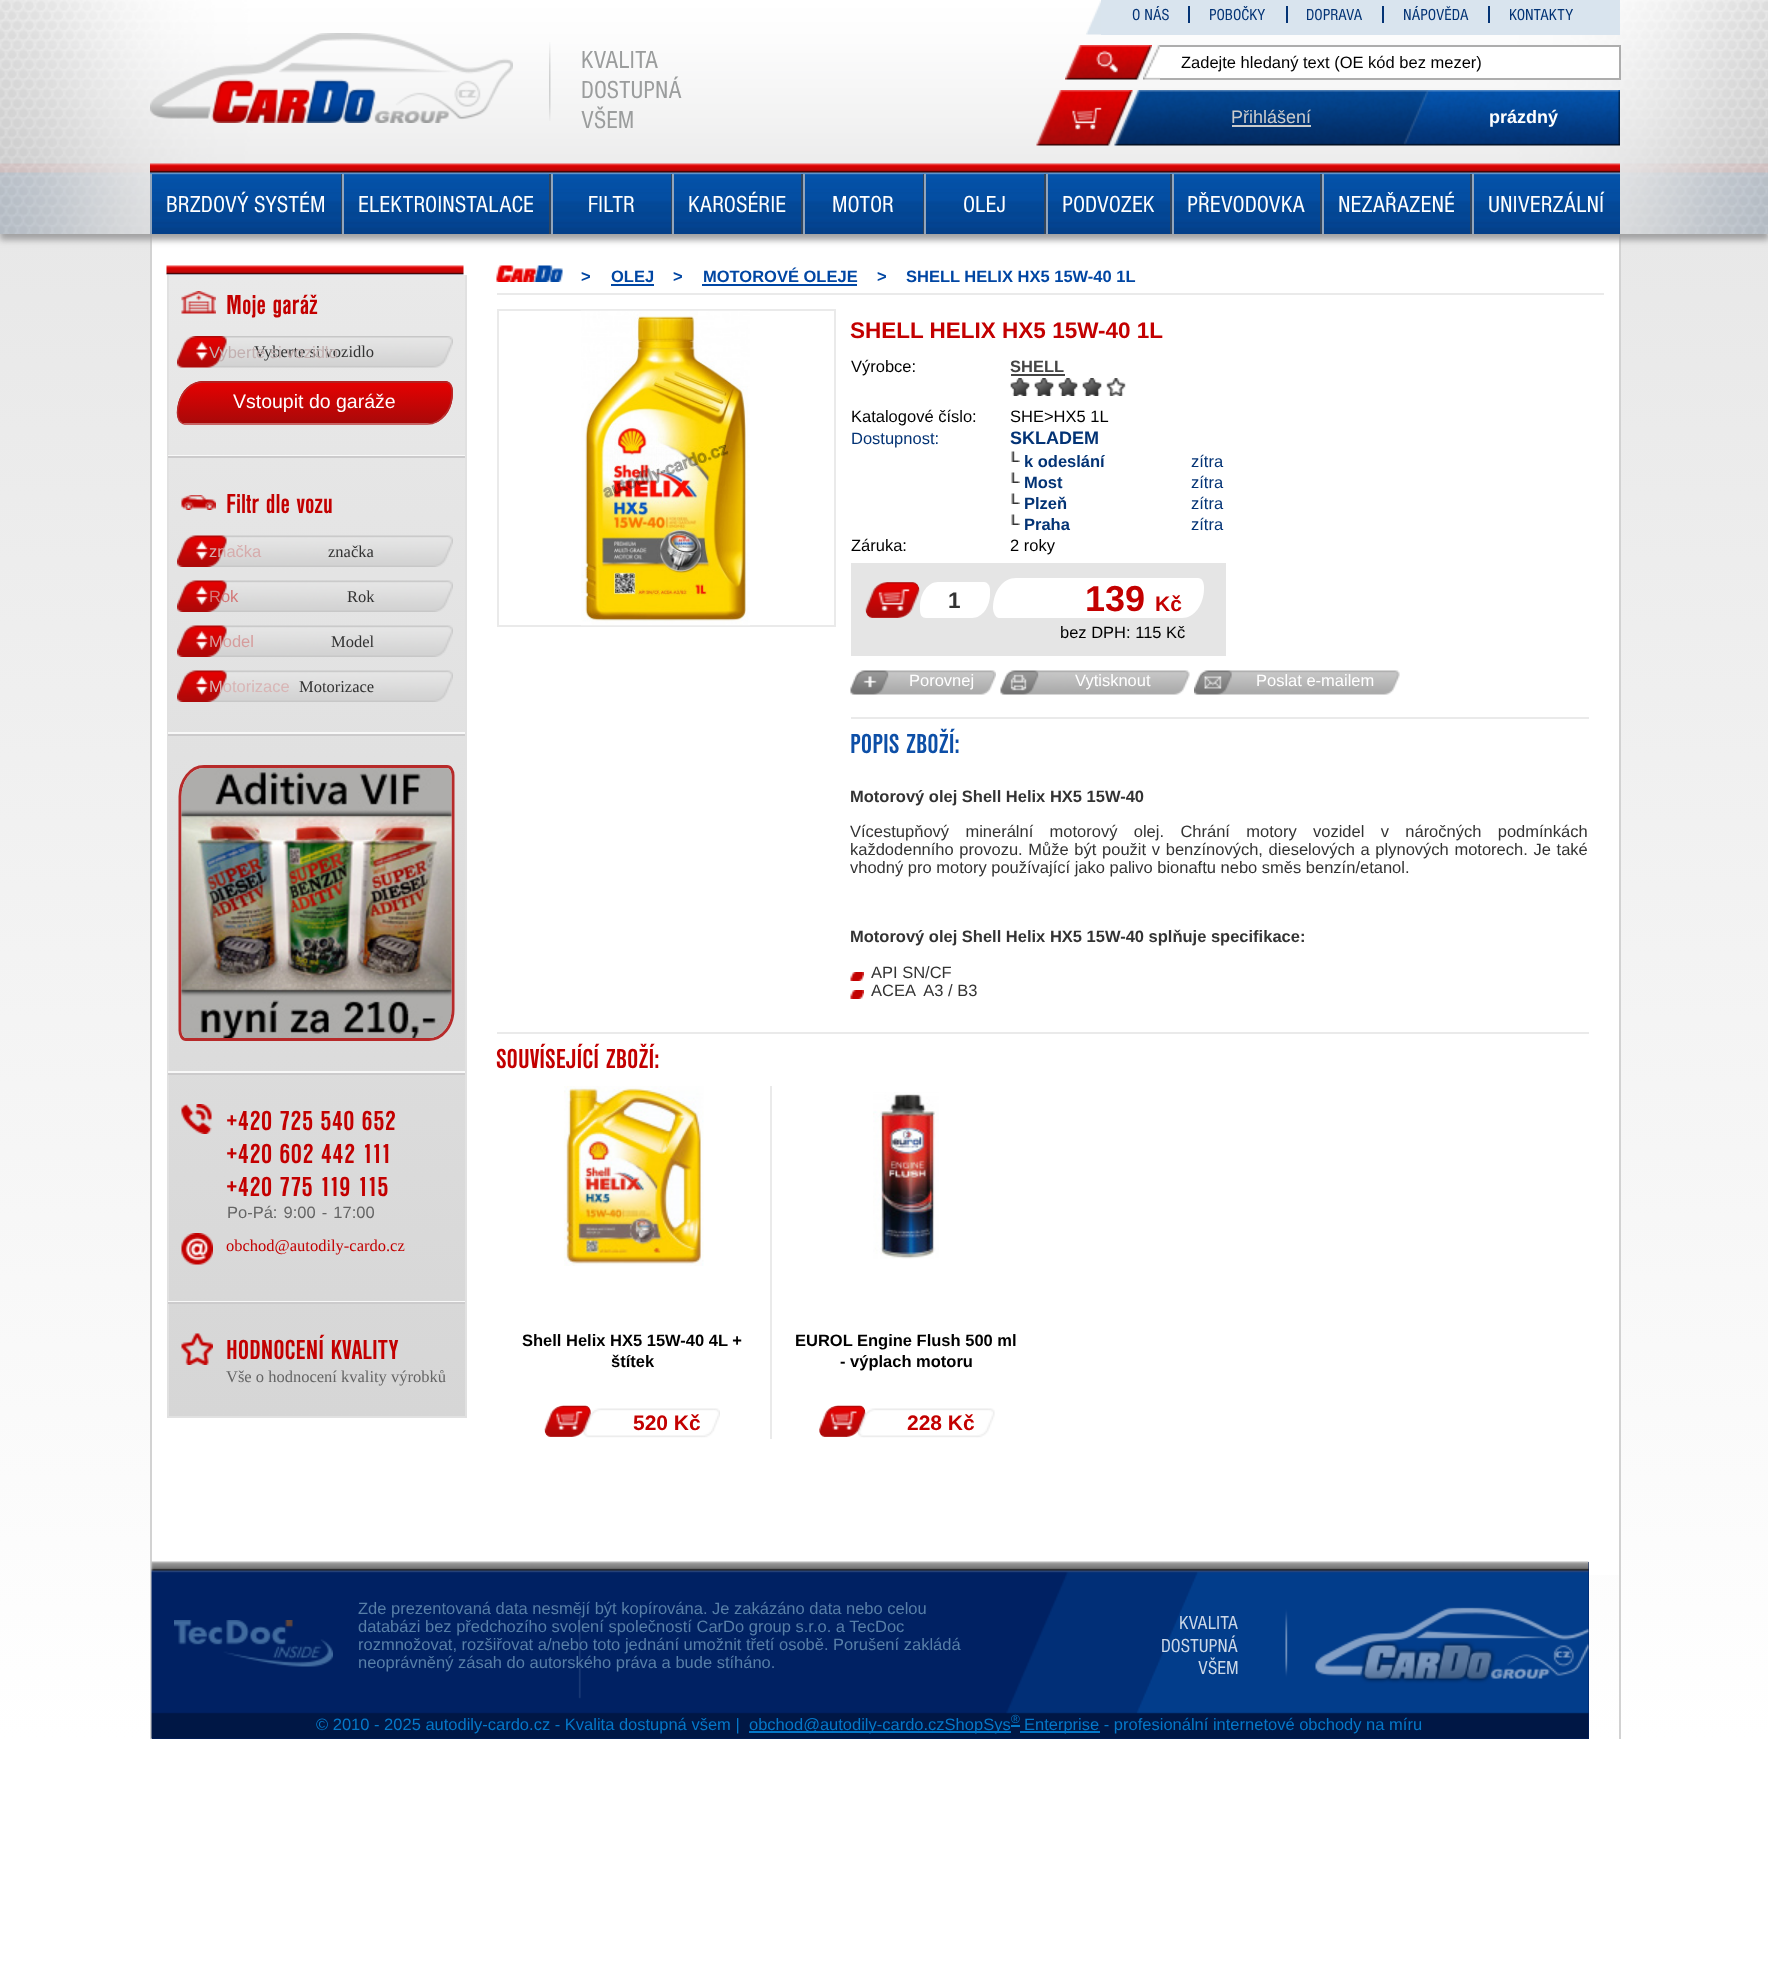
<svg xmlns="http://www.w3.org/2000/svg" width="1768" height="1969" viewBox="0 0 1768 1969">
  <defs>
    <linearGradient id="g1" gradientUnits="userSpaceOnUse" x1="884" y1="234" x2="884" y2="1739"><stop offset="0" stop-color="#e8e8e8"/><stop offset="1" stop-color="#ffffff"/></linearGradient>
    <filter id="blur1" x="-50%" y="-200%" width="200%" height="500%"><feGaussianBlur stdDeviation="3"/></filter>
    <linearGradient id="g2" gradientUnits="userSpaceOnUse" x1="316" y1="275" x2="317" y2="1416"><stop offset="0" stop-color="#e9e9e9"/><stop offset="1" stop-color="#d6d6d6"/></linearGradient>
    <linearGradient id="g3" gradientUnits="userSpaceOnUse" x1="315" y1="342" x2="315" y2="383"><stop offset="0" stop-color="#e50101"/><stop offset="1" stop-color="#a90909"/></linearGradient>
    <linearGradient id="g4" gradientUnits="userSpaceOnUse" x1="315" y1="383" x2="315" y2="423"><stop offset="0" stop-color="#e50101"/><stop offset="1" stop-color="#a90909"/></linearGradient>
  </defs>
  <rect width="100%" height="100%" fill="#ffffff"/>
  <path d="M0 234H1764C1767 234 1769 236 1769 239V1734C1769 1737 1767 1739 1764 1739H5C2 1739 0 1737 0 1734Z" fill="url(#g1)"/>
  <rect x="152" y="234" width="1467" height="1341" fill="#ffffff"/>
  <rect x="1619" y="234" width="2" height="1505" fill="#d2d2d2"/>
  <rect x="150" y="234" width="2" height="1505" fill="#d2d2d2"/>
  <rect x="0" y="6" width="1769" height="234" fill="#a1a1a2" filter="url(#blur1)"/>
  <image x="0" y="0" width="1768" height="234" href="img1.png"/>
  <rect x="1101" y="0" width="519" height="35" fill="#d9e4ee"/>
  <image x="1086" y="1" width="15" height="34" href="img2.png"/>
  <text x="1132" y="20" font-family="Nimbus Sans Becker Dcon" font-size="16.5" fill="#033375">O NÁS</text>
  <rect x="1188" y="6" width="2" height="17" fill="#033375"/>
  <text x="1209" y="20" font-family="Nimbus Sans Becker Dcon" font-size="16.5" fill="#033375">POBOČKY</text>
  <rect x="1286" y="6" width="2" height="17" fill="#033375"/>
  <text x="1306" y="20" font-family="Nimbus Sans Becker Dcon" font-size="16.5" fill="#033375">DOPRAVA</text>
  <rect x="1382" y="6" width="2" height="17" fill="#033375"/>
  <text x="1403" y="20" font-family="Nimbus Sans Becker Dcon" font-size="16.5" fill="#033375">NÁPOVĚDA</text>
  <rect x="1488" y="6" width="2" height="17" fill="#033375"/>
  <text x="1509" y="20" font-family="Nimbus Sans Becker Dcon" font-size="16.5" fill="#033375">KONTAKTY</text>
  <image x="150" y="33" width="363" height="90" href="img3.png"/>
  <image x="549" y="42" width="2" height="79" href="img4.png"/>
  <text x="581" y="68" font-family="Nimbus Sans Becker Dcon" font-size="25.5" fill="#9b9d9d">KVALITA</text>
  <text x="581" y="98" font-family="Nimbus Sans Becker Dcon" font-size="25.5" fill="#9b9d9d">DOSTUPNÁ</text>
  <text x="581" y="128" font-family="Nimbus Sans Becker Dcon" font-size="25.5" fill="#9b9d9d">VŠEM</text>
  <image x="1065" y="45" width="87" height="35" href="img5.png"/>
  <image x="1143" y="45" width="17" height="35" href="img6.png"/>
  <rect x="1160" y="47" width="459" height="31" fill="#ffffff"/>
  <rect x="1160" y="45" width="460" height="2" fill="#adadad"/>
  <rect x="1619" y="45" width="2" height="35" fill="#adadad"/>
  <rect x="1160" y="78" width="460" height="2" fill="#adadad"/>
  <text x="1181" y="68" font-family="Liberation Sans" font-size="16.5" fill="#000000">Zadejte hledaný text (OE kód bez mezer)</text>
  <image x="1036" y="90" width="97" height="56" href="img7.png"/>
  <image x="1114" y="90" width="506" height="56" href="img8.png"/>
  <text x="1231" y="123" font-family="Liberation Sans" font-size="18" fill="#cccccc">Přihlášení</text>
  <rect x="1232" y="125" width="79" height="2" fill="#cccccc"/>
  <text x="1489" y="123" font-family="Liberation Sans" font-size="18" font-weight="bold" fill="#ffffff">prázdný</text>
  <image x="150" y="163" width="1470" height="71" href="img9.png"/>
  <rect x="341" y="174" width="1" height="60" fill="#32455c"/>
  <rect x="150" y="174" width="2" height="60" fill="#91a4bb"/>
  <text x="166" y="212" font-family="Nimbus Sans Becker Dcon" font-size="24" fill="#ffffff">BRZDOVÝ SYSTÉM</text>
  <rect x="549" y="174" width="2" height="60" fill="#32455c"/>
  <rect x="342" y="174" width="2" height="60" fill="#91a4bb"/>
  <text x="358" y="212" font-family="Nimbus Sans Becker Dcon" font-size="24" fill="#ffffff">ELEKTROINSTALACE</text>
  <rect x="671" y="174" width="1" height="60" fill="#32455c"/>
  <rect x="551" y="174" width="2" height="60" fill="#91a4bb"/>
  <text x="588" y="212" font-family="Nimbus Sans Becker Dcon" font-size="24" fill="#ffffff">FILTR</text>
  <rect x="801" y="174" width="2" height="60" fill="#32455c"/>
  <rect x="672" y="174" width="2" height="60" fill="#91a4bb"/>
  <text x="688" y="212" font-family="Nimbus Sans Becker Dcon" font-size="24" fill="#ffffff">KAROSÉRIE</text>
  <rect x="923" y="174" width="1" height="60" fill="#32455c"/>
  <rect x="803" y="174" width="2" height="60" fill="#91a4bb"/>
  <text x="832" y="212" font-family="Nimbus Sans Becker Dcon" font-size="24" fill="#ffffff">MOTOR</text>
  <rect x="1044" y="174" width="2" height="60" fill="#32455c"/>
  <rect x="924" y="174" width="2" height="60" fill="#91a4bb"/>
  <text x="963" y="212" font-family="Nimbus Sans Becker Dcon" font-size="24" fill="#ffffff">OLEJ</text>
  <rect x="1170" y="174" width="2" height="60" fill="#32455c"/>
  <rect x="1046" y="174" width="2" height="60" fill="#91a4bb"/>
  <text x="1062" y="212" font-family="Nimbus Sans Becker Dcon" font-size="24" fill="#ffffff">PODVOZEK</text>
  <rect x="1320" y="174" width="2" height="60" fill="#32455c"/>
  <rect x="1172" y="174" width="2" height="60" fill="#91a4bb"/>
  <text x="1187" y="212" font-family="Nimbus Sans Becker Dcon" font-size="24" fill="#ffffff">PŘEVODOVKA</text>
  <rect x="1470" y="174" width="2" height="60" fill="#32455c"/>
  <rect x="1322" y="174" width="2" height="60" fill="#91a4bb"/>
  <text x="1338" y="212" font-family="Nimbus Sans Becker Dcon" font-size="24" fill="#ffffff">NEZAŘAZENÉ</text>
  <rect x="1472" y="174" width="2" height="60" fill="#91a4bb"/>
  <text x="1488" y="212" font-family="Nimbus Sans Becker Dcon" font-size="24" fill="#ffffff">UNIVERZÁLNÍ</text>
  <rect x="169" y="275" width="296" height="1141" fill="url(#g2)"/>
  <rect x="465" y="275" width="2" height="1143" fill="#e1e1e1"/>
  <rect x="167" y="1416" width="300" height="2" fill="#e1e1e1"/>
  <rect x="167" y="275" width="2" height="1143" fill="#e1e1e1"/>
  <image x="166" y="265" width="298" height="10" href="img10.png"/>
  <image x="181" y="291" width="35" height="23" href="img11.png"/>
  <text x="226" y="314" font-family="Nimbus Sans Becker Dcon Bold" font-size="28.5" font-weight="bold" fill="#c30000">Moje garáž</text>
  <image x="177" y="336" width="276" height="32" href="img12.png"/>
  <text x="254" y="357" font-family="Liberation Serif" font-size="16.5" fill="#333333">Vyberte si vozidlo</text>
  <text x="209" y="358" font-family="Liberation Sans" font-size="16.5" fill="#c2b0b0">Vyberte si vozidlo</text>
  <path d="M202 381H446C447 381 449 382 450 383H194C196 382 199 381 202 381Z" fill="url(#g3)"/>
  <path d="M177 412C177 416 178 420 181 423H435C446 419 453 407 453 393V392C453 388 452 385 450 383H194C184 387 177 399 177 412Z" fill="url(#g4)"/>
  <path d="M445 414.5C440.5 420.5 434 424 427.5 424H184.5C182.5 424 181 422.5 179.5 421" fill="none" stroke="#bd3a3a" stroke-width="1.5"/>
  <path d="M179.5 421C176.5 416 177.5 408.5 179 403.5C181.5 392.5 190.5 382 202.5 382H445.5C452.5 382 452.5 391.5 452 396C451.5 403 449.5 409.5 445 414.5" fill="none" stroke="#b72a2a" stroke-width="1.5"/>
  <text x="233" y="408" font-family="Liberation Sans" font-size="19.5" fill="#ffffff">Vstoupit do garáže</text>
  <rect x="168" y="455" width="297" height="1" fill="#f8f8f8"/>
  <rect x="168" y="456" width="297" height="2" fill="#cccbcc"/>
  <image x="181" y="495" width="35" height="15" href="img13.png"/>
  <text x="226" y="513" font-family="Nimbus Sans Becker Dcon Bold" font-size="28.5" font-weight="bold" fill="#c30000">Filtr dle vozu</text>
  <image x="177" y="535" width="276" height="32" href="img14.png"/>
  <text x="209" y="557" font-family="Liberation Sans" font-size="16.5" fill="#d6acac">značka</text>
  <text x="328" y="557" font-family="Liberation Serif" font-size="16.5" fill="#333333">značka</text>
  <image x="177" y="580" width="276" height="32" href="img15.png"/>
  <text x="209" y="602" font-family="Liberation Sans" font-size="16.5" fill="#d37777">Rok</text>
  <text x="347" y="602" font-family="Liberation Serif" font-size="16.5" fill="#333333">Rok</text>
  <image x="177" y="625" width="276" height="32" href="img16.png"/>
  <text x="209" y="647" font-family="Liberation Sans" font-size="16.5" fill="#d69d9d">Model</text>
  <text x="331" y="647" font-family="Liberation Serif" font-size="16.5" fill="#333333">Model</text>
  <image x="177" y="670" width="276" height="32" href="img17.png"/>
  <text x="209" y="692" font-family="Liberation Sans" font-size="16.5" fill="#d8b5b5">Motorizace</text>
  <text x="299" y="692" font-family="Liberation Serif" font-size="16.5" fill="#333333">Motorizace</text>
  <rect x="168" y="732" width="297" height="2" fill="#f8f8f8"/>
  <rect x="168" y="734" width="297" height="2" fill="#cccbcc"/>
  <path d="M204 766.5H447C450.5 766.5 453 770.5 453 775.5V1009.5C453 1026 442.5 1039.5 429 1039.5H186C182.5 1039.5 180 1035.5 180 1030.5V796.5C180 780 190.5 766.5 204 766.5Z" fill="none" stroke="#b72a2a" stroke-width="3"/>
  <image x="181" y="768" width="271" height="270" href="img18.png"/>
  <rect x="168" y="1071" width="297" height="2" fill="#f8f8f8"/>
  <rect x="168" y="1073" width="297" height="2" fill="#cccbcc"/>
  <image x="181" y="1104" width="31" height="30" href="img19.png"/>
  <text x="226" y="1130" font-family="Nimbus Sans Becker Dcon Bold" font-size="28.5" font-weight="bold" fill="#c30000">+420 725 540 652</text>
  <text x="226" y="1163" font-family="Nimbus Sans Becker Dcon Bold" font-size="28.5" font-weight="bold" fill="#c30000">+420 602 442 111</text>
  <text x="226" y="1196" font-family="Nimbus Sans Becker Dcon Bold" font-size="28.5" font-weight="bold" fill="#c30000">+420 775 119 115</text>
  <text x="227" y="1218" word-spacing="1.5" font-family="Liberation Sans" font-size="16.5" fill="#656565">Po-Pá: 9:00 - 17:00</text>
  <image x="181" y="1233" width="32" height="32" href="img20.png"/>
  <text x="226" y="1251" font-family="Liberation Serif" font-size="16.5" fill="#c30000">obchod@autodily-cardo.cz</text>
  <rect x="168" y="1301" width="297" height="1" fill="#f8f8f8"/>
  <rect x="168" y="1302" width="297" height="2" fill="#cccbcc"/>
  <image x="181" y="1333" width="32" height="32" href="img21.png"/>
  <text x="226" y="1359" font-family="Nimbus Sans Becker Dcon Bold" font-size="28.5" font-weight="bold" fill="#c30000">HODNOCENÍ KVALITY</text>
  <text x="226" y="1382" font-family="Liberation Serif" font-size="16.5" fill="#656565">Vše o hodnocení kvality výrobků</text>
  <rect x="497" y="293" width="1107" height="2" fill="#eaeaea"/>
  <image x="496" y="265" width="67" height="17" href="img22.png"/>
  <text x="581" y="282" font-family="Liberation Sans" font-size="16.5" font-weight="bold" fill="#0046a3">&gt;</text>
  <text x="611" y="282" font-family="Liberation Sans" font-size="16.5" font-weight="bold" fill="#0046a3">OLEJ</text>
  <rect x="611" y="284" width="43" height="2" fill="#0046a3"/>
  <text x="673" y="282" font-family="Liberation Sans" font-size="16.5" font-weight="bold" fill="#0046a3">&gt;</text>
  <text x="703" y="282" font-family="Liberation Sans" font-size="16.5" font-weight="bold" fill="#0046a3">MOTOROVÉ OLEJE</text>
  <rect x="702" y="284" width="155" height="2" fill="#0046a3"/>
  <text x="877" y="282" font-family="Liberation Sans" font-size="16.5" font-weight="bold" fill="#0046a3">&gt;</text>
  <text x="906" y="282" font-family="Liberation Sans" font-size="16.5" font-weight="bold" fill="#0046a3">SHELL HELIX HX5 15W-40 1L</text>
  <rect x="498" y="310" width="337" height="316" fill="none" stroke="#eaeaea" stroke-width="2"/>
  <image x="581" y="310" width="169" height="316" href="img23.png"/>
  <text x="850" y="338" font-family="Liberation Sans" font-size="22.5" font-weight="bold" fill="#c30000">SHELL HELIX HX5 15W-40 1L</text>
  <text x="851" y="372" font-family="Liberation Sans" font-size="16.5" fill="#000000">Výrobce:</text>
  <text x="1010" y="372" font-family="Liberation Sans" font-size="16.5" font-weight="bold" fill="#444444">SHELL</text>
  <rect x="1011" y="374" width="54" height="2" fill="#444444"/>
  <image x="1010" y="378" width="116" height="18" href="img24.png"/>
  <image x="1010" y="378" width="92" height="18" href="img25.png"/>
  <text x="851" y="422" font-family="Liberation Sans" font-size="16.5" fill="#000000">Katalogové číslo:</text>
  <text x="1010" y="422" font-family="Liberation Sans" font-size="16.5" fill="#000000">SHE&gt;HX5 1L</text>
  <text x="851" y="444" font-family="Liberation Sans" font-size="16.5" fill="#033375">Dostupnost:</text>
  <text x="1010" y="444" font-family="Liberation Sans" font-size="18" font-weight="bold" fill="#033375">SKLADEM</text>
  <image x="1011" y="451" width="9" height="11" href="img26.png"/>
  <text x="1024" y="467" font-family="Liberation Sans" font-size="16.5" font-weight="bold" fill="#033375">k odeslání</text>
  <text x="1191" y="467" font-family="Liberation Sans" font-size="16.5" fill="#033375">zítra</text>
  <image x="1011" y="472" width="9" height="11" href="img26.png"/>
  <text x="1024" y="488" font-family="Liberation Sans" font-size="16.5" font-weight="bold" fill="#033375">Most</text>
  <text x="1191" y="488" font-family="Liberation Sans" font-size="16.5" fill="#033375">zítra</text>
  <image x="1011" y="493" width="9" height="11" href="img26.png"/>
  <text x="1024" y="509" font-family="Liberation Sans" font-size="16.5" font-weight="bold" fill="#033375">Plzeň</text>
  <text x="1191" y="509" font-family="Liberation Sans" font-size="16.5" fill="#033375">zítra</text>
  <image x="1011" y="514" width="9" height="11" href="img26.png"/>
  <text x="1024" y="530" font-family="Liberation Sans" font-size="16.5" font-weight="bold" fill="#033375">Praha</text>
  <text x="1191" y="530" font-family="Liberation Sans" font-size="16.5" fill="#033375">zítra</text>
  <text x="851" y="551" font-family="Liberation Sans" font-size="16.5" fill="#000000">Záruka:</text>
  <text x="1010" y="551" font-family="Liberation Sans" font-size="16.5" fill="#000000">2 roky</text>
  <rect x="851" y="563" width="375" height="93" fill="#e5e5e5"/>
  <image x="865" y="582" width="55" height="36" href="img27.png"/>
  <path d="M938 582H984C987 582 990 585 990 590V594C990 607 982 618 972 618H926C922 618 920 615 920 610V606C920 593 928 582 938 582Z" fill="#ffffff"/>
  <text x="948" y="608" font-family="Liberation Sans" font-size="22.5" font-weight="bold" fill="#333333">1</text>
  <path d="M1016 578H1198C1202 578 1204 582 1204 588C1204 605 1194 618 1182 618H999C996 618 993 613 993 608C993 591 1003 578 1016 578Z" fill="#ffffff"/>
  <text x="1085" y="611" font-family="Liberation Sans" font-size="36" font-weight="bold" fill="#c30000">139</text>
  <text x="1155" y="611" font-family="Liberation Sans" font-size="21" font-weight="bold" fill="#c30000">Kč</text>
  <text x="1060" y="638" font-family="Liberation Sans" font-size="16.5" fill="#000000">bez DPH: 115 Kč</text>
  <image x="850" y="670" width="146" height="25" href="img28.png"/>
  <text x="909" y="686" font-family="Liberation Sans" font-size="16.5" fill="#ffffff">Porovnej</text>
  <image x="1000" y="670" width="190" height="25" href="img29.png"/>
  <text x="1075" y="686" font-family="Liberation Sans" font-size="16.5" fill="#ffffff">Vytisknout</text>
  <image x="1194" y="670" width="206" height="25" href="img30.png"/>
  <text x="1256" y="686" font-family="Liberation Sans" font-size="16.5" fill="#ffffff">Poslat e-mailem</text>
  <rect x="851" y="717" width="738" height="2" fill="#eaeaea"/>
  <text x="850" y="753" font-family="Nimbus Sans Becker Dcon Bold" font-size="28.5" font-weight="bold" fill="#0d4fa7">POPIS ZBOŽÍ:</text>
  <text x="850" y="802" font-family="Liberation Sans" font-size="16.5" font-weight="bold" fill="#333333">Motorový olej Shell Helix HX5 15W-40</text>
  <text x="850" y="837" word-spacing="11.75" font-family="Liberation Sans" font-size="16.5" fill="#333333">Vícestupňový minerální motorový olej. Chrání motory vozidel v náročných podmínkách</text>
  <text x="850" y="855" word-spacing="1.1" font-family="Liberation Sans" font-size="16.5" fill="#333333">každodenního provozu. Může být použit v benzínových, dieselových a plynových motorech. Je také</text>
  <text x="850" y="873" font-family="Liberation Sans" font-size="16.5" fill="#333333">vhodný pro motory používající jako palivo bionaftu nebo směs benzín/etanol.</text>
  <text x="850" y="942" font-family="Liberation Sans" font-size="16.5" font-weight="bold" fill="#333333">Motorový olej Shell Helix HX5 15W-40 splňuje specifikace:</text>
  <image x="850" y="972" width="14" height="9" href="img31.png"/>
  <text x="871" y="978" font-family="Liberation Sans" font-size="16.5" fill="#333333">API SN/CF</text>
  <image x="850" y="990" width="14" height="9" href="img31.png"/>
  <text x="871" y="996" font-family="Liberation Sans" font-size="16.5" fill="#333333" xml:space="preserve">ACEA  A3 / B3</text>
  <rect x="497" y="1032" width="1092" height="2" fill="#eaeaea"/>
  <text x="496" y="1068" font-family="Nimbus Sans Becker Dcon Bold" font-size="28.5" font-weight="bold" fill="#c30000">SOUVÍSEJÍCÍ ZBOŽÍ:</text>
  <image x="564" y="1086" width="140" height="180" href="img32.png"/>
  <text x="522" y="1346" font-family="Liberation Sans" font-size="16.5" font-weight="bold" fill="#000000">Shell Helix HX5 15W-40 4L +</text>
  <text x="611" y="1367" font-family="Liberation Sans" font-size="16.5" font-weight="bold" fill="#000000">štítek</text>
  <image x="583" y="1408" width="137" height="30" href="img34.png"/>
  <image x="544" y="1405" width="47" height="32" href="img33.png"/>
  <text x="633" y="1430" font-family="Liberation Sans" font-size="21" font-weight="bold" fill="#c30000">520 Kč</text>
  <rect x="770" y="1086" width="2" height="353" fill="#eaeaea"/>
  <image x="873" y="1092" width="66" height="167" href="img35.png"/>
  <text x="795" y="1346" font-family="Liberation Sans" font-size="16.5" font-weight="bold" fill="#000000">EUROL Engine Flush 500 ml</text>
  <text x="840" y="1367" font-family="Liberation Sans" font-size="16.5" font-weight="bold" fill="#000000">- výplach motoru</text>
  <image x="858" y="1408" width="137" height="30" href="img37.png"/>
  <image x="819" y="1405" width="47" height="32" href="img36.png"/>
  <text x="907" y="1430" font-family="Liberation Sans" font-size="21" font-weight="bold" fill="#c30000">228 Kč</text>
  <rect x="152" y="1562" width="1437" height="177" fill="#002163"/>
  <image x="151" y="1561" width="1438" height="178" href="img38.png"/>
  <image x="174" y="1620" width="159" height="47" href="img39.png"/>
  <text x="358" y="1614" font-family="Liberation Sans" font-size="16.5" fill="#577fa8">Zde prezentovaná data nesmějí být kopírována. Je zakázáno data nebo celou</text>
  <text x="358" y="1632" font-family="Liberation Sans" font-size="16.5" fill="#577fa8">databázi bez předchozího svolení společností CarDo group s.r.o. a TecDoc</text>
  <text x="358" y="1650" font-family="Liberation Sans" font-size="16.5" fill="#577fa8">rozmnožovat, rozšiřovat a/nebo toto jednání umožnit třetí osobě. Porušení zakládá</text>
  <text x="358" y="1668" font-family="Liberation Sans" font-size="16.5" fill="#577fa8">neoprávněný zásah do autorského práva a bude stíháno.</text>
  <text x="1179" y="1629" font-family="Nimbus Sans Becker Dcon" font-size="19.5" fill="#ccd8e8">KVALITA</text>
  <text x="1161" y="1652" font-family="Nimbus Sans Becker Dcon" font-size="19.5" fill="#ccd8e8">DOSTUPNÁ</text>
  <text x="1198" y="1674" font-family="Nimbus Sans Becker Dcon" font-size="19.5" fill="#ccd8e8">VŠEM</text>
  <text x="316" y="1730" font-family="Liberation Sans" font-size="16.5" fill="#0478c9">© 2010 - 2025 autodily-cardo.cz - Kvalita dostupná všem |</text>
  <rect x="749" y="1731" width="262" height="2" fill="#0478c9"/>
  <text x="749" y="1730" font-family="Liberation Sans" font-size="16.5" fill="#0478c9">obchod@autodily-cardo.czShopSys</text>
  <text x="1011" y="1723" font-family="Liberation Sans" font-size="12" fill="#0478c9">®</text>
  <rect x="1020" y="1731" width="80" height="2" fill="#0478c9"/>
  <text x="1024" y="1730" font-family="Liberation Sans" font-size="16.5" fill="#0478c9">Enterprise - profesionální internetové obchody na míru</text>
  <rect x="1011" y="1725" width="9" height="2" fill="#0478c9"/>
</svg>
